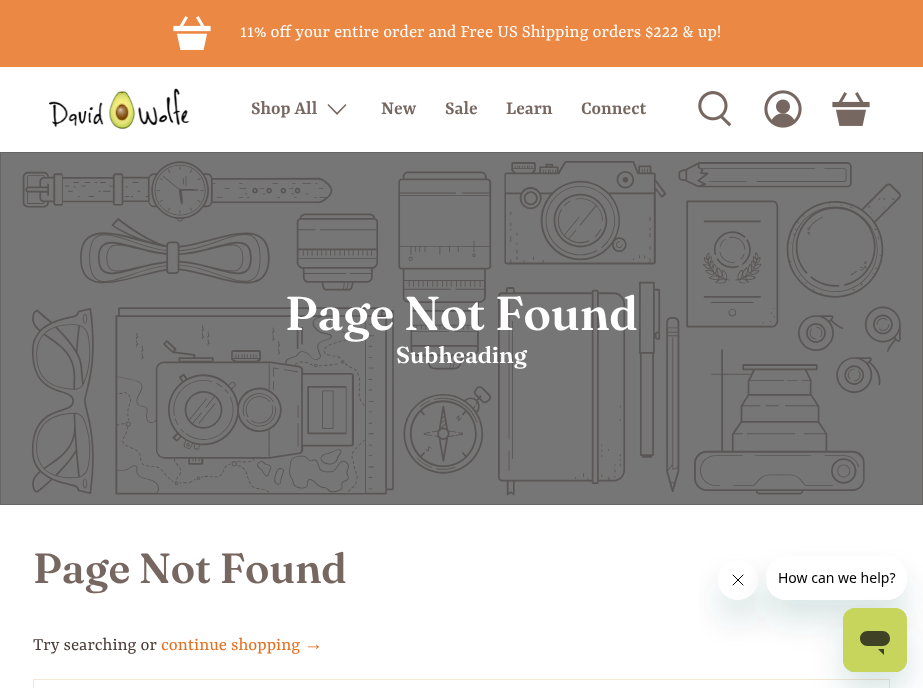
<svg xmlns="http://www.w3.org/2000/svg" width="923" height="688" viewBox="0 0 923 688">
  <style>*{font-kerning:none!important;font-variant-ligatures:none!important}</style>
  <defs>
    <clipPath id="clip1"><path d="M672 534H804V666H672ZM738 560C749 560 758 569 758 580C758 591 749 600 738 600C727 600 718 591 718 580C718 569 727 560 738 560Z" clip-rule="evenodd"/></clipPath>
    <filter id="blur1" x="-50%" y="-200%" width="200%" height="500%"><feGaussianBlur stdDeviation="15"/></filter>
    <clipPath id="clip2"><path d="M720 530H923V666H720ZM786 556H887C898 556 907 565 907 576V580C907 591 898 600 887 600H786C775 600 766 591 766 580V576C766 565 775 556 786 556Z" clip-rule="evenodd"/></clipPath>
  </defs>
  <rect width="100%" height="100%" fill="#ffffff"/>
  <rect x="0" y="0" width="923" height="67" fill="#eb8844"/>
  <image x="173" y="16" width="38" height="34" href="img1.png"/>
  <text x="240" y="37" font-family="Rasa" font-size="19" fill="#ffffff">11% off your entire order and Free US Shipping orders $222 &amp; up!</text>
  <image x="49" y="88" width="141" height="41" href="img2.png"/>
  <text x="251" y="114" font-family="Rasa" font-size="20" font-weight="600" fill="#776761">Shop All</text>
  <path d="M337 115L327.5 105L328.5 104L337 112.5L345.5 104L346.5 105Z" fill="#776761"/>
  <text x="381" y="114" font-family="Rasa" font-size="20" font-weight="600" fill="#776761">New</text>
  <text x="445" y="114" font-family="Rasa" font-size="20" font-weight="600" fill="#776761">Sale</text>
  <text x="506" y="114" font-family="Rasa" font-size="20" font-weight="600" fill="#776761">Learn</text>
  <text x="581" y="114" font-family="Rasa" font-size="20" font-weight="600" fill="#776761">Connect</text>
  <image x="698" y="91" width="34" height="36" href="img3.png"/>
  <image x="764" y="90" width="38" height="38" href="img4.png"/>
  <image x="832" y="92" width="38" height="34" href="img5.png"/>
  <rect x="0.5" y="152.5" width="922" height="352" fill="#777676" stroke="#676564"/>
  <image x="22" y="161" width="879" height="335" href="img6.png"/>
  <text x="285" y="330" font-family="'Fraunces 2'" font-size="47.5" font-weight="600" fill="#ffffff">Page Not Found</text>
  <text x="396" y="363" font-family="'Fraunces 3'" font-size="23" font-weight="600" fill="#ffffff">Subheading</text>
  <text x="33" y="583" font-family="Fraunces" font-size="42" font-weight="600" fill="#776761">Page Not Found</text>
  <text x="33" y="650" font-family="Rasa" font-size="19" fill="#493b36">Try searching or</text>
  <text x="161" y="650" font-family="Rasa" font-size="19" fill="#e36e1e">continue shopping</text>
  <text x="304" y="650" font-family="Liberation Serif" font-size="19" fill="#e36e1e">→</text>
  <rect x="33.5" y="679.5" width="856" height="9" fill="none" stroke="#f5e8d3"/>
  <g clip-path="url(#clip1)">
    <rect x="718" y="580" width="40" height="40" rx="20" fill="#17494d" fill-opacity="0.15" filter="url(#blur1)"/>
  </g>
  <image x="732" y="574" width="12" height="12" href="img8.png"/>
  <g clip-path="url(#clip2)">
    <rect x="766" y="576" width="141" height="44" rx="20" fill="#17494d" fill-opacity="0.15" filter="url(#blur1)"/>
  </g>
  <image x="767" y="572" width="134" height="28" href="img7.png"/>
  <rect x="843" y="628" width="64" height="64" rx="12" fill="#17494d" fill-opacity="0.15" filter="url(#blur1)"/>
  <image x="843" y="608" width="64" height="64" href="img9.png"/>
</svg>
